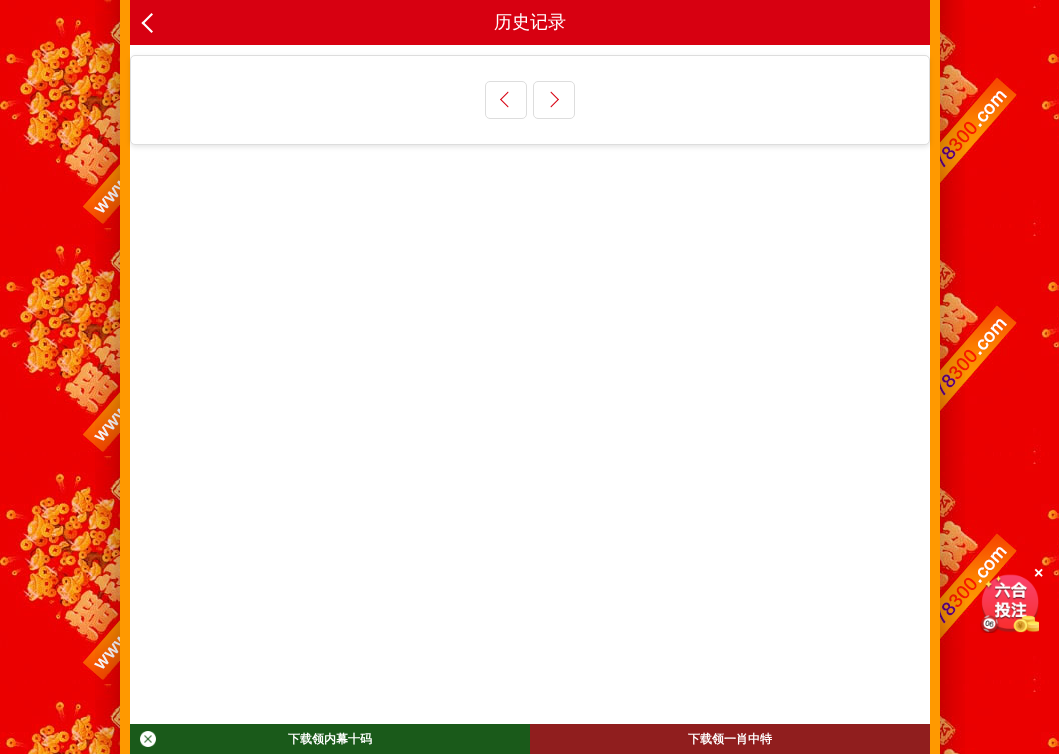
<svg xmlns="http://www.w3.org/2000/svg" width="1059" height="754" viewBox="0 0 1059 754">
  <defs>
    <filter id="blur1" x="-50%" y="-200%" width="200%" height="500%"><feGaussianBlur stdDeviation="2.5"/></filter>
  </defs>
  <rect width="100%" height="100%" fill="#ffffff"/>
  <image x="0" y="0" width="1059" height="754" href="img1.png"/>
  <image x="95" y="0" width="870" height="754" href="img2.png"/>
  <rect x="130" y="0" width="800" height="45" fill="#d70011"/>
  <path d="M151.5 33L141.5 23L143 21.5L153 31.5Z" fill="#ffffff"/>
  <path d="M143 24.5L141.5 23L151.5 13L153 14.5Z" fill="#ffffff"/>
  <text x="494" y="28" font-family="WenQuanYi Zen Hei" font-size="18" font-weight="500" fill="#ffffff">历史记录</text>
  <rect x="130" y="57" width="800" height="90" rx="5" fill="#000000" fill-opacity="0.1" filter="url(#blur1)"/>
  <rect x="130.5" y="55.5" width="799" height="89" rx="4.5" fill="#ffffff" stroke="#dddddd"/>
  <rect x="485.5" y="81.5" width="41" height="37" rx="4.5" fill="none" stroke="#dddddd"/>
  <path d="M508 107.5L500 99.5L501 99L508.5 106.5Z" fill="#d70011"/>
  <path d="M501 100L500 99.5L508 91.5L508.5 92.5Z" fill="#d70011"/>
  <rect x="533.5" y="81.5" width="41" height="37" rx="4.5" fill="none" stroke="#dddddd"/>
  <path d="M551 91.5L559 99.5L558 100L550.5 92.5Z" fill="#d70011"/>
  <path d="M558 99L559 99.5L551 107.5L550.5 106.5Z" fill="#d70011"/>
  <image x="980" y="574" width="59" height="59" href="img3.png"/>
  <text x="1034" y="578" font-family="Liberation Sans" font-size="16" font-weight="bold" fill="#ffffff">×</text>
  <rect x="130" y="724" width="400" height="30" fill="#1a5a1a"/>
  <image x="140" y="731" width="16" height="16" href="img4.png"/>
  <text x="288" y="743" font-family="WenQuanYi Zen Hei" font-size="12" font-weight="bold" fill="#ffffff">下载领内幕十码</text>
  <rect x="530" y="724" width="400" height="30" fill="#901e1e"/>
  <text x="688" y="743" font-family="WenQuanYi Zen Hei" font-size="12" font-weight="bold" fill="#ffffff">下载领一肖中特</text>
</svg>
